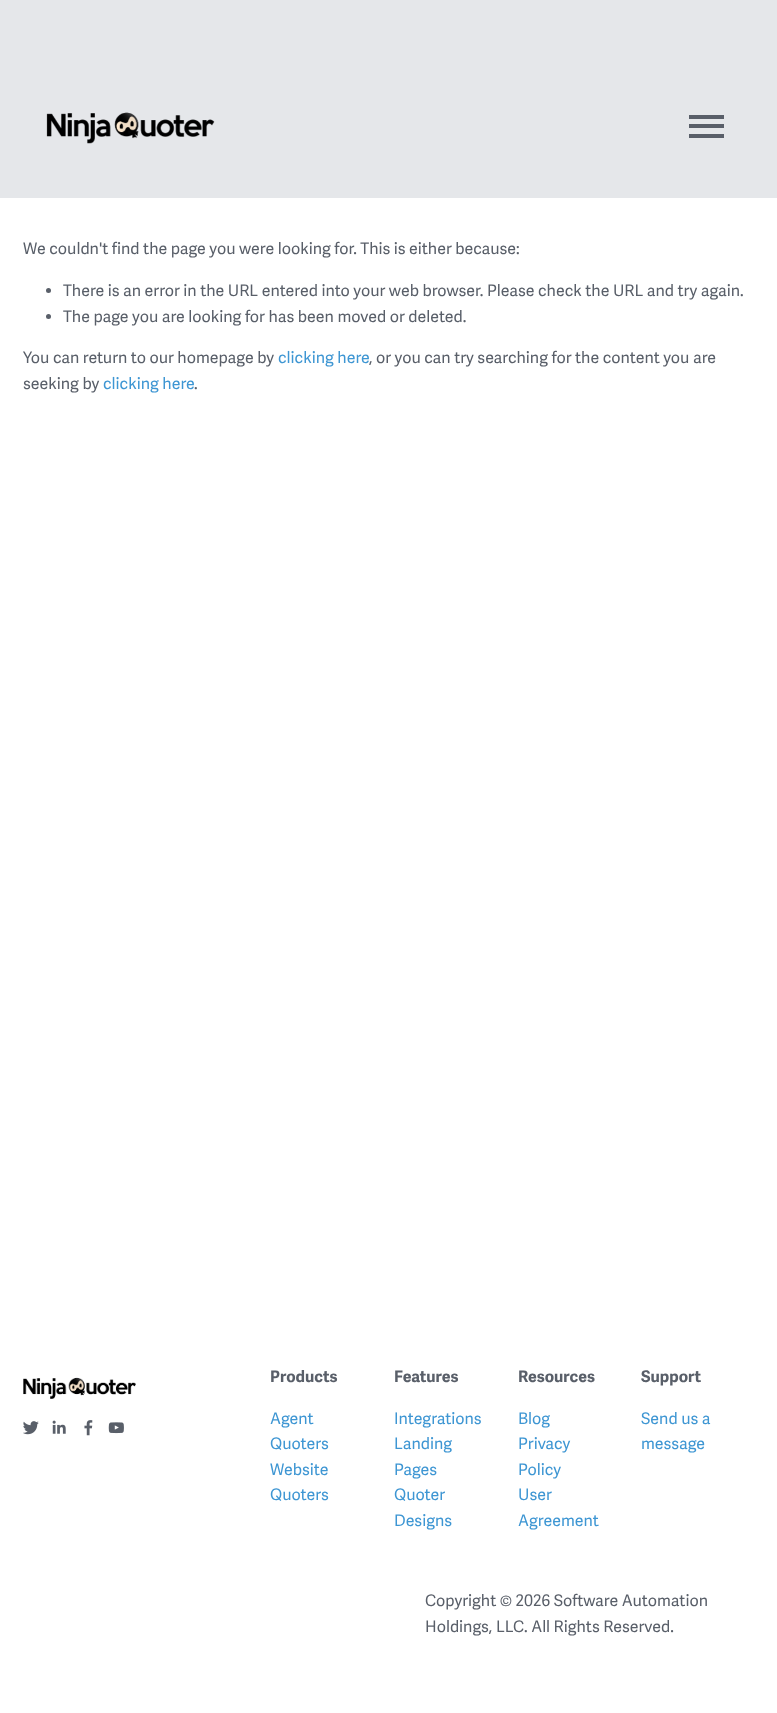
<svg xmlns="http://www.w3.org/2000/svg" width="777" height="1713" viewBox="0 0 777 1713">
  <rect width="100%" height="100%" fill="#ffffff"/>
  <rect x="0" y="0" width="777" height="198" fill="#e5e7ea"/>
  <image x="46" y="112" width="169" height="32" href="img1.png"/>
  <rect x="689" y="115" width="35" height="4" fill="#595f69"/>
  <rect x="689" y="124" width="35" height="4" fill="#595f69"/>
  <rect x="689" y="134" width="35" height="4" fill="#595f69"/>
  <text x="23" y="254" font-family="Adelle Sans" font-size="16" fill="#595f69">We couldn't find the page you were looking for. This is either because:</text>
  <circle cx="48.5" cy="290.5" r="2.5" fill="#595f69"/>
  <text x="63" y="296" font-family="Adelle Sans" font-size="16" fill="#595f69">There is an error in the URL entered into your web browser. Please check the URL and try again.</text>
  <circle cx="48.5" cy="316.5" r="2.5" fill="#595f69"/>
  <text x="63" y="322" font-family="Adelle Sans" font-size="16" fill="#595f69">The page you are looking for has been moved or deleted.</text>
  <text x="23" y="363" font-family="Adelle Sans" font-size="16" fill="#595f69">You can return to our homepage by</text>
  <text x="278" y="363" font-family="Adelle Sans" font-size="16" fill="#3e96d3">clicking here</text>
  <text x="369" y="363" font-family="Adelle Sans" font-size="16" fill="#595f69">, or you can try searching for the content you are</text>
  <text x="23" y="389" font-family="Adelle Sans" font-size="16" fill="#595f69">seeking by</text>
  <text x="103" y="389" font-family="Adelle Sans" font-size="16" fill="#3e96d3">clicking here</text>
  <text x="194" y="389" font-family="Adelle Sans" font-size="16" fill="#595f69">.</text>
  <image x="23" y="1377" width="113" height="22" href="img2.png"/>
  <text x="270" y="1382" font-family="Adelle Sans" font-size="16" font-weight="bold" fill="#595f69">Products</text>
  <text x="270" y="1424" font-family="Adelle Sans" font-size="16" fill="#3e96d3">Agent</text>
  <text x="270" y="1449" font-family="Adelle Sans" font-size="16" fill="#3e96d3">Quoters</text>
  <text x="270" y="1475" font-family="Adelle Sans" font-size="16" fill="#3e96d3">Website</text>
  <text x="270" y="1500" font-family="Adelle Sans" font-size="16" fill="#3e96d3">Quoters</text>
  <text x="394" y="1382" font-family="Adelle Sans" font-size="16" font-weight="bold" fill="#595f69">Features</text>
  <text x="394" y="1424" font-family="Adelle Sans" font-size="16" fill="#3e96d3">Integrations</text>
  <text x="394" y="1449" font-family="Adelle Sans" font-size="16" fill="#3e96d3">Landing</text>
  <text x="394" y="1475" font-family="Adelle Sans" font-size="16" fill="#3e96d3">Pages</text>
  <text x="394" y="1500" font-family="Adelle Sans" font-size="16" fill="#3e96d3">Quoter</text>
  <text x="394" y="1526" font-family="Adelle Sans" font-size="16" fill="#3e96d3">Designs</text>
  <text x="518" y="1382" font-family="Adelle Sans" font-size="16" font-weight="bold" fill="#595f69">Resources</text>
  <text x="518" y="1424" font-family="Adelle Sans" font-size="16" fill="#3e96d3">Blog</text>
  <text x="518" y="1449" font-family="Adelle Sans" font-size="16" fill="#3e96d3">Privacy</text>
  <text x="518" y="1475" font-family="Adelle Sans" font-size="16" fill="#3e96d3">Policy</text>
  <text x="518" y="1500" font-family="Adelle Sans" font-size="16" fill="#3e96d3">User</text>
  <text x="518" y="1526" font-family="Adelle Sans" font-size="16" fill="#3e96d3">Agreement</text>
  <text x="641" y="1382" font-family="Adelle Sans" font-size="16" font-weight="bold" fill="#595f69">Support</text>
  <text x="641" y="1424" font-family="Adelle Sans" font-size="16" fill="#3e96d3">Send us a</text>
  <text x="641" y="1449" font-family="Adelle Sans" font-size="16" fill="#3e96d3">message</text>
  <image x="23" y="1421" width="16" height="14" href="img3.png"/>
  <image x="52" y="1420" width="14" height="14" href="img4.png"/>
  <image x="84" y="1420" width="9" height="16" href="img5.png"/>
  <image x="108" y="1422" width="16" height="12" href="img6.png"/>
  <text x="425" y="1606" font-family="Adelle Sans" font-size="16" fill="#595f69">Copyright © 2026 Software Automation</text>
  <text x="425" y="1632" font-family="Adelle Sans" font-size="16" fill="#595f69">Holdings, LLC. All Rights Reserved.</text>
</svg>
